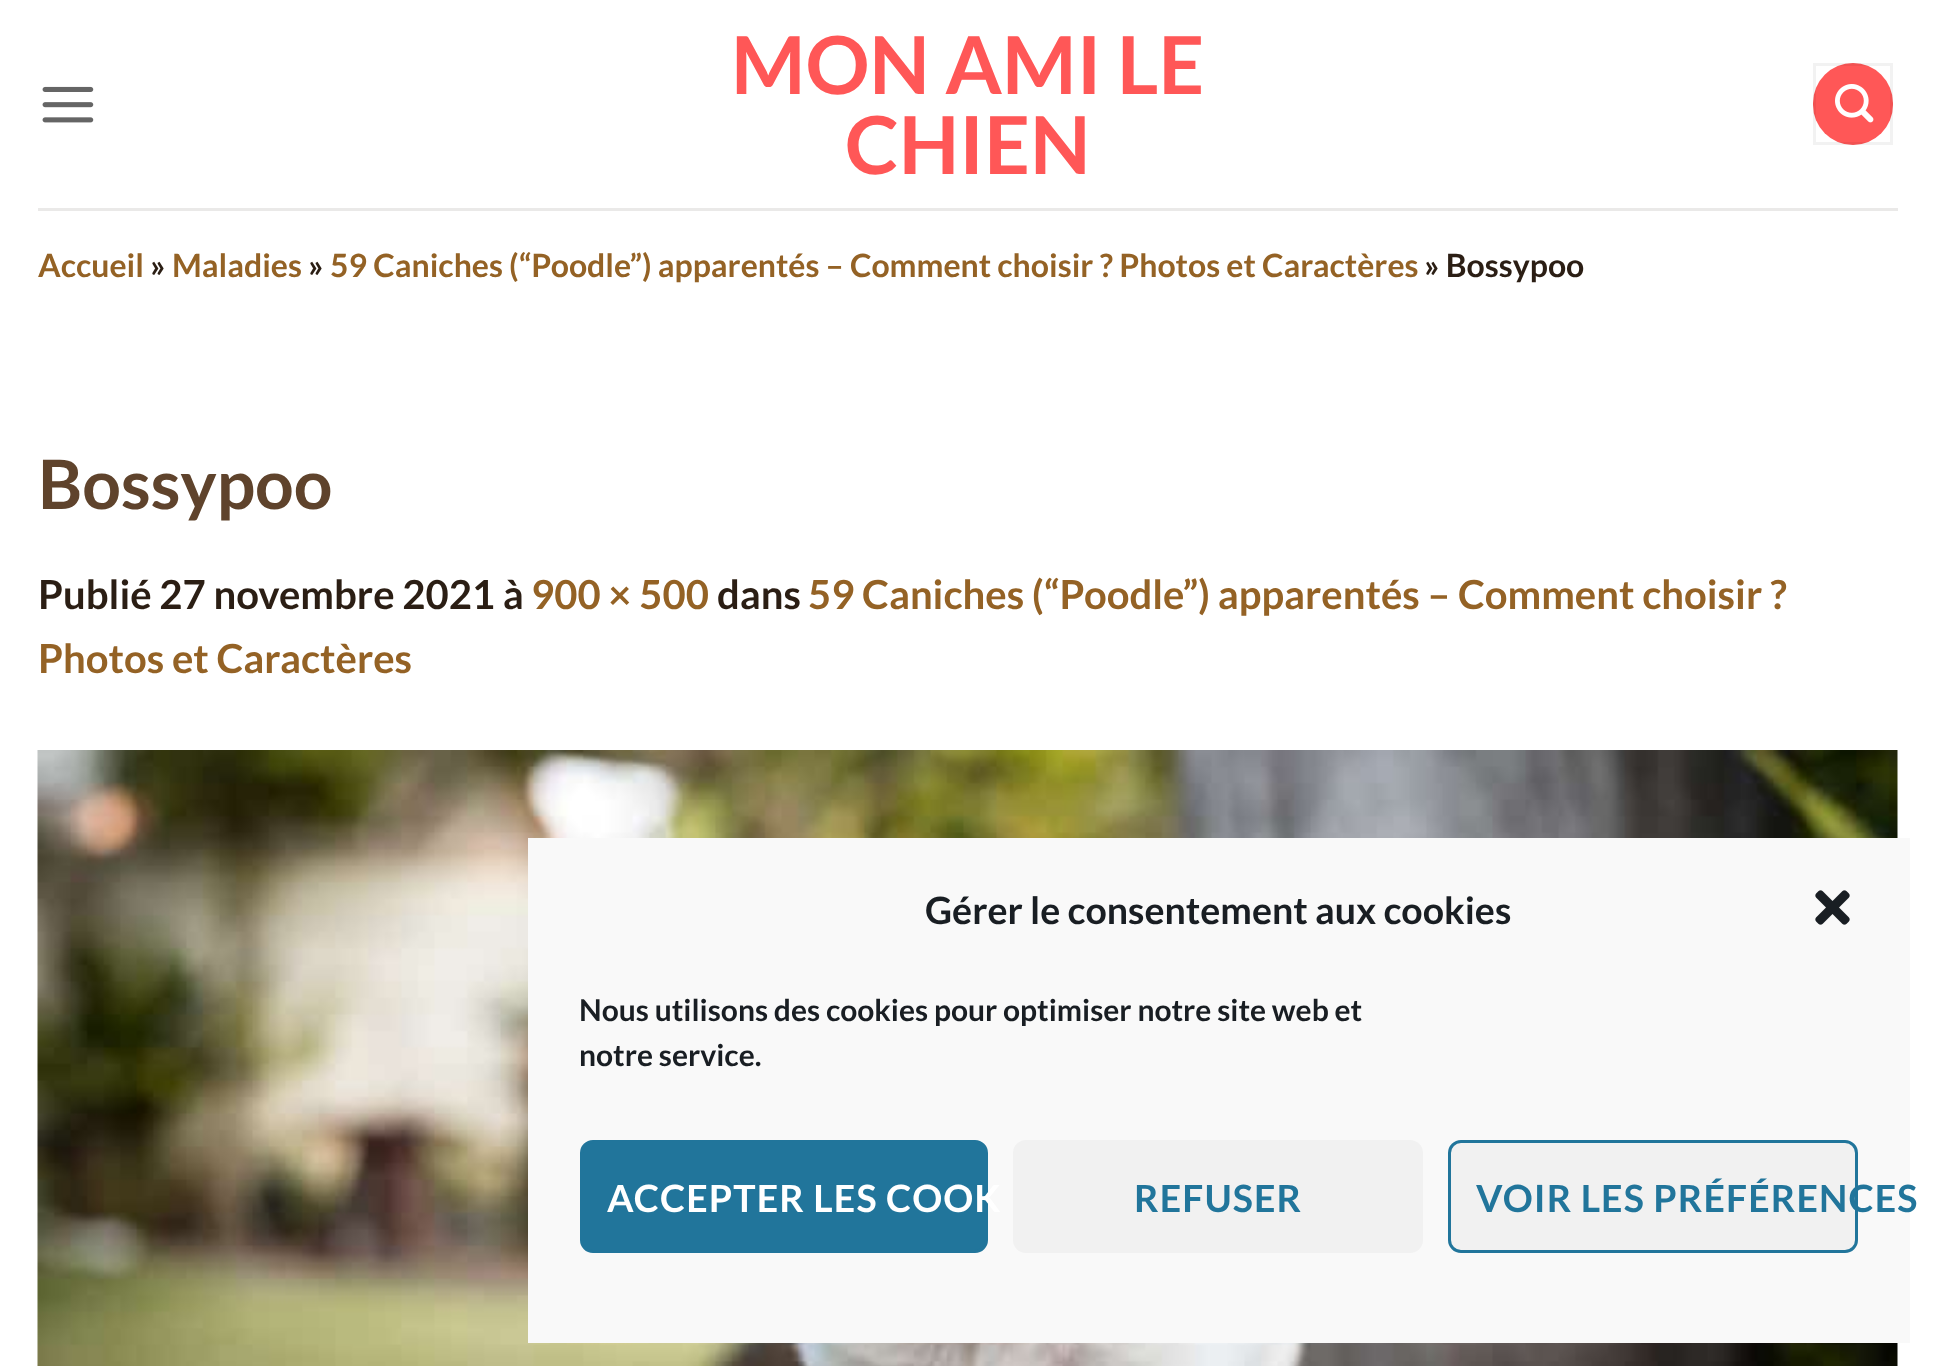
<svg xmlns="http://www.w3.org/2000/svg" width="1935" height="1366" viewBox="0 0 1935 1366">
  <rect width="100%" height="100%" fill="#ffffff"/>
  <image x="42" y="86" width="52" height="37" href="img1.png"/>
  <text x="731" y="94" font-family="Lato" font-size="80" font-weight="bold" fill="#ff5757">MON AMI LE</text>
  <text x="845" y="174" font-family="Lato" font-size="80" font-weight="bold" fill="#ff5757">CHIEN</text>
  <rect x="1813" y="63" width="80" height="82" rx="40" fill="#ff5757"/>
  <rect x="1814.5" y="64.5" width="77" height="79" fill="none" stroke="#000000" stroke-opacity="0.05" stroke-width="3"/>
  <image x="1835" y="84" width="39" height="39" href="img2.png"/>
  <rect x="38" y="208" width="1860" height="3" fill="#eae9e8"/>
  <text x="38" y="277" font-family="Lato" font-size="32" font-weight="bold" fill="#946225">Accueil</text>
  <text x="150" y="277" font-family="Lato" font-size="32" font-weight="bold" fill="#2b1e14">»</text>
  <text x="172" y="277" font-family="Lato" font-size="32" font-weight="bold" fill="#946225">Maladies</text>
  <text x="308" y="277" font-family="Lato" font-size="32" font-weight="bold" fill="#2b1e14">»</text>
  <text x="330" y="277" font-family="Lato" font-size="32" font-weight="bold" fill="#946225">59 Caniches (“Poodle”) apparentés – Comment choisir ? Photos et Caractères</text>
  <text x="1424" y="277" font-family="Lato" font-size="32" font-weight="bold" fill="#2b1e14">» Bossypoo</text>
  <text x="38" y="509" font-family="Lato" font-size="68" font-weight="bold" fill="#5f432c">Bossypoo</text>
  <text x="38" y="609" font-family="Lato" font-size="40" font-weight="bold" fill="#2b1e14">Publié 27 novembre 2021 à</text>
  <text x="531" y="609" font-family="Lato" font-size="40" font-weight="bold" fill="#946225">900 × 500</text>
  <text x="717" y="609" font-family="Lato" font-size="40" font-weight="bold" fill="#2b1e14">dans</text>
  <text x="808" y="609" font-family="Lato" font-size="40" font-weight="bold" fill="#946225">59 Caniches (“Poodle”) apparentés – Comment choisir ?</text>
  <text x="38" y="673" font-family="Lato" font-size="40" font-weight="bold" fill="#946225">Photos et Caractères</text>
  <image x="37" y="750" width="1861" height="616" href="img3.png"/>
  <rect x="528" y="838" width="1382" height="505" fill="#f9f9f9"/>
  <text x="925" y="924" font-family="Lato" font-size="37.5" font-weight="bold" fill="#191e23">Gérer le consentement aux cookies</text>
  <image x="1815" y="890" width="35" height="35" href="img4.png"/>
  <text x="579" y="1021" font-family="Lato" font-size="30" font-weight="bold" fill="#191e23">Nous utilisons des cookies pour optimiser notre site web et</text>
  <text x="579" y="1066" font-family="Lato" font-size="30" font-weight="bold" fill="#191e23">notre service.</text>
  <rect x="581.5" y="1141.5" width="405" height="110" rx="11.5" fill="#21759b" stroke="#21759b" stroke-width="3"/>
  <text x="607" y="1212" font-family="Lato" font-size="37.5" font-weight="bold" letter-spacing="1.1" fill="#ffffff">ACCEPTER LES COOK</text>
  <rect x="1013" y="1140" width="410" height="113" rx="13" fill="#f1f1f1"/>
  <text x="1134" y="1212" font-family="Lato" font-size="37.5" font-weight="bold" letter-spacing="1.1" fill="#21759b">REFUSER</text>
  <rect x="1449.5" y="1141.5" width="407" height="110" rx="11.5" fill="#f1f1f1" stroke="#21759b" stroke-width="3"/>
  <text x="1476" y="1212" font-family="Lato" font-size="37.5" font-weight="bold" letter-spacing="1.1" fill="#21759b">VOIR LES PRÉFÉRENCES</text>
</svg>
